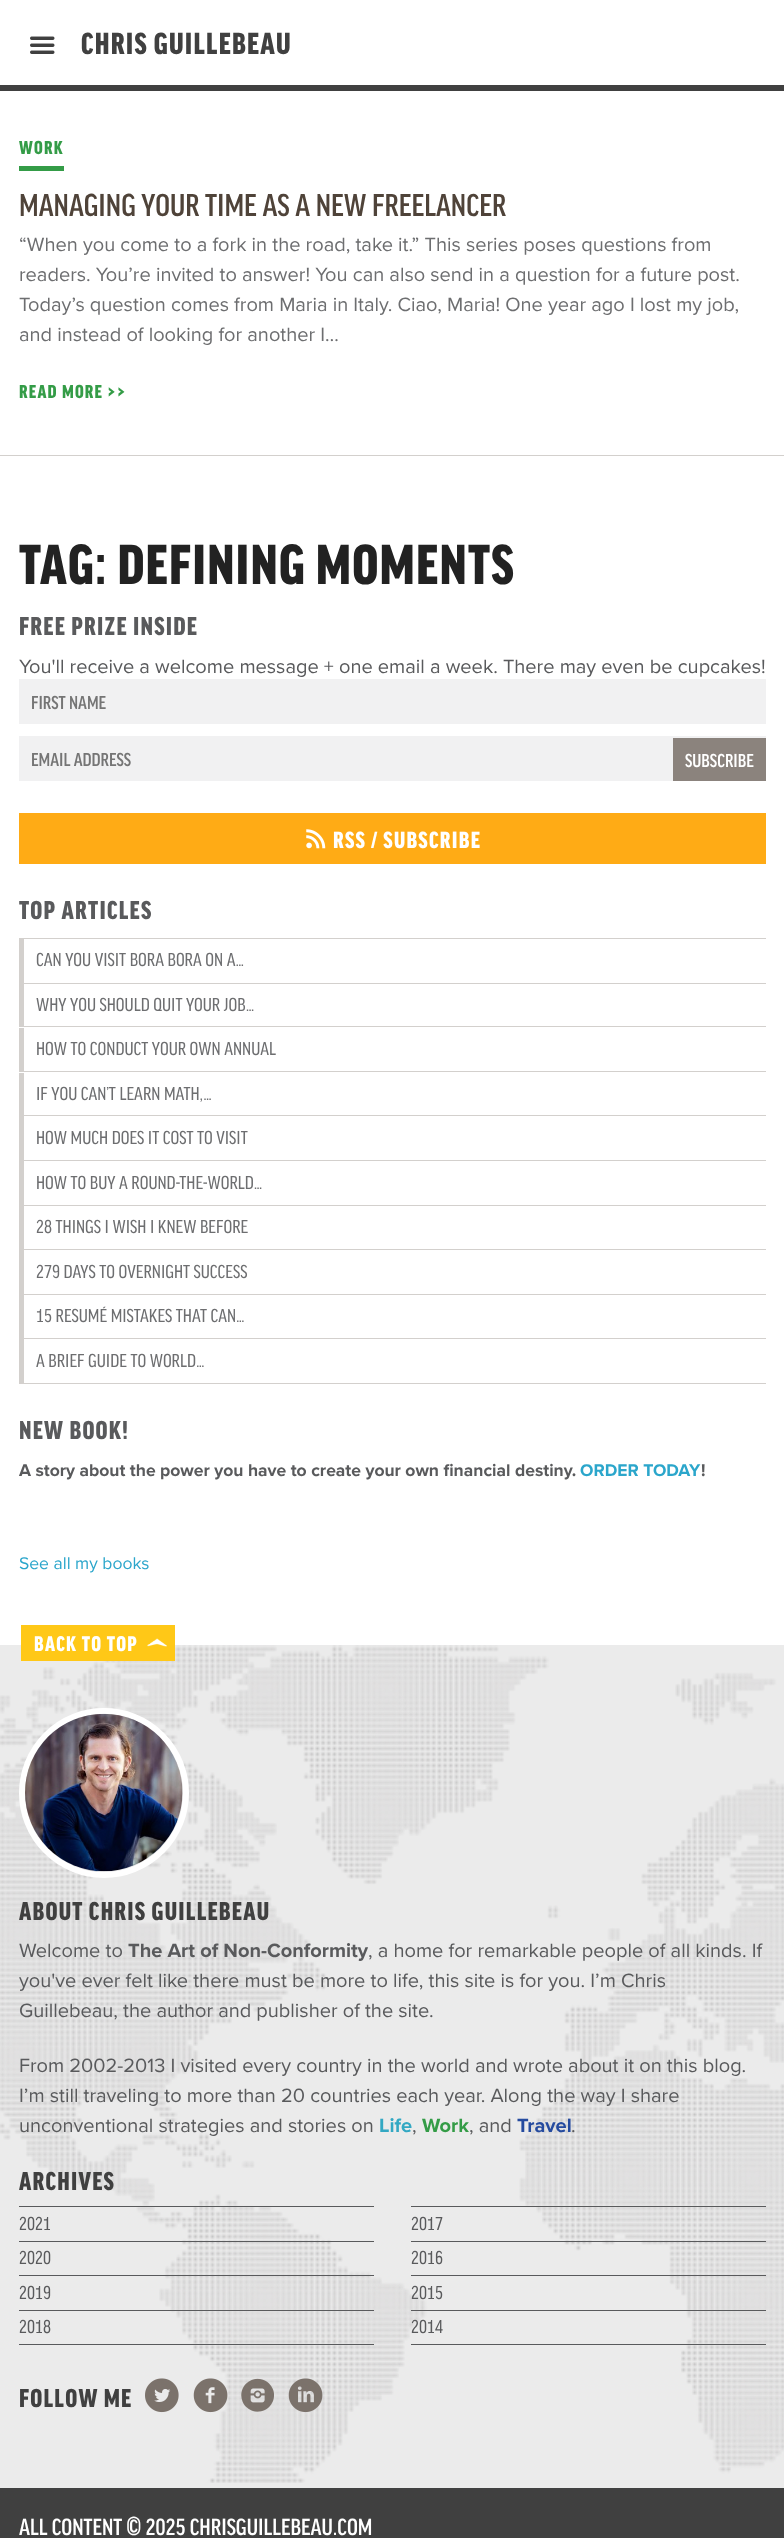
<svg xmlns="http://www.w3.org/2000/svg" width="784" height="2538" viewBox="0 0 784 2538">
  <rect width="100%" height="100%" fill="#ffffff"/>
  <rect x="0" y="85" width="784" height="6" fill="#404040"/>
  <image x="30" y="36" width="25" height="18" href="img1.png"/>
  <text x="81" y="54" font-family="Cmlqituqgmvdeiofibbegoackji" font-size="32.5" font-weight="900" letter-spacing="1.25" fill="#404040">CHRIS GUILLEBEAU</text>
  <rect x="0" y="455" width="784" height="1" fill="#d3d0cd"/>
  <rect x="19" y="166" width="45" height="5" fill="#349c47"/>
  <text x="19" y="154" font-family="Cmlqituqgmvdeiofibbegoackji" font-size="20" font-weight="900" letter-spacing="1.25" fill="#349c47">WORK</text>
  <text x="19" y="216" font-family="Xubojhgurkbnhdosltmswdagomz" font-size="33.75" font-weight="500" fill="#4f4339">MANAGING YOUR TIME AS A NEW FREELANCER</text>
  <text x="19" y="251" font-family="Proxima Nova" font-size="20" fill="#6d6e70">“When you come to a fork in the road, take it.” This series poses questions from</text>
  <text x="19" y="281" font-family="Proxima Nova" font-size="20" fill="#6d6e70">readers. You’re invited to answer! You can also send in a question for a future post.</text>
  <text x="19" y="311" font-family="Proxima Nova" font-size="20" fill="#6d6e70">Today’s question comes from Maria in Italy. Ciao, Maria! One year ago I lost my job,</text>
  <text x="19" y="341" font-family="Proxima Nova" font-size="20" fill="#6d6e70">and instead of looking for another I…</text>
  <text x="19" y="398" font-family="Cmlqituqgmvdeiofibbegoackji" font-size="20" font-weight="900" letter-spacing="1.25" fill="#349c47">READ MORE &gt;&gt;</text>
  <text x="19" y="584" font-family="Cmlqituqgmvdeiofibbegoackji" font-size="60" font-weight="900" letter-spacing="1.25" fill="#222222">TAG: DEFINING MOMENTS</text>
  <text x="19" y="635" font-family="Cmlqituqgmvdeiofibbegoackji" font-size="27.5" font-weight="900" letter-spacing="1.25" fill="#595a5c">FREE PRIZE INSIDE</text>
  <text x="19" y="673" font-family="Proxima Nova" font-size="20" fill="#595a5c">You'll receive a welcome message + one email a week. There may even be cupcakes!</text>
  <rect x="19" y="679" width="747" height="45" fill="#f1f1f2"/>
  <text x="31" y="709" font-family="Xubojhgurkbnhdosltmswdagomz" font-size="20" font-weight="500" fill="#757575">FIRST NAME</text>
  <rect x="19" y="736" width="747" height="45" fill="#f1f1f2"/>
  <text x="31" y="766" font-family="Xubojhgurkbnhdosltmswdagomz" font-size="20" font-weight="500" fill="#757575">EMAIL ADDRESS</text>
  <rect x="673" y="738" width="93" height="43" fill="#8b837d"/>
  <text x="685" y="767" font-family="Xubojhgurkbnhdosltmswdagomz" font-size="20" font-weight="500" fill="#ffffff">SUBSCRIBE</text>
  <rect x="19" y="813" width="747" height="51" fill="#ffab15"/>
  <image x="306" y="829" width="20" height="20" href="img2.png"/>
  <text x="333" y="848" font-family="Cmlqituqgmvdeiofibbegoackji" font-size="25" font-weight="900" letter-spacing="1.25" fill="#ffffff">RSS / SUBSCRIBE</text>
  <text x="19" y="919" font-family="Cmlqituqgmvdeiofibbegoackji" font-size="27.5" font-weight="900" letter-spacing="1.25" fill="#595a5c">TOP ARTICLES</text>
  <rect x="19" y="938" width="747" height="1" fill="#d3d0cd"/>
  <rect x="19" y="983" width="747" height="1" fill="#d3d0cd"/>
  <rect x="19" y="939" width="5" height="44" fill="#d3d0cd"/>
  <text x="36" y="966" font-family="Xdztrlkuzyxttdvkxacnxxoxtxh" font-size="20" font-weight="500" fill="#6d6e70">CAN YOU VISIT BORA BORA ON A…</text>
  <rect x="19" y="1026" width="747" height="1" fill="#d3d0cd"/>
  <rect x="19" y="984" width="5" height="42" fill="#d3d0cd"/>
  <text x="36" y="1011" font-family="Xdztrlkuzyxttdvkxacnxxoxtxh" font-size="20" font-weight="500" fill="#6d6e70">WHY YOU SHOULD QUIT YOUR JOB…</text>
  <rect x="19" y="1071" width="747" height="1" fill="#d3d0cd"/>
  <rect x="19" y="1028" width="5" height="43" fill="#d3d0cd"/>
  <text x="36" y="1055" font-family="Xdztrlkuzyxttdvkxacnxxoxtxh" font-size="20" font-weight="500" fill="#6d6e70">HOW TO CONDUCT YOUR OWN ANNUAL</text>
  <rect x="19" y="1115" width="747" height="1" fill="#d3d0cd"/>
  <rect x="19" y="1073" width="5" height="42" fill="#d3d0cd"/>
  <text x="36" y="1100" font-family="Xdztrlkuzyxttdvkxacnxxoxtxh" font-size="20" font-weight="500" fill="#6d6e70">IF YOU CAN’T LEARN MATH,…</text>
  <rect x="19" y="1160" width="747" height="1" fill="#d3d0cd"/>
  <rect x="19" y="1116" width="5" height="44" fill="#d3d0cd"/>
  <text x="36" y="1144" font-family="Xdztrlkuzyxttdvkxacnxxoxtxh" font-size="20" font-weight="500" fill="#6d6e70">HOW MUCH DOES IT COST TO VISIT</text>
  <rect x="19" y="1205" width="747" height="1" fill="#d3d0cd"/>
  <rect x="19" y="1161" width="5" height="44" fill="#d3d0cd"/>
  <text x="36" y="1189" font-family="Xdztrlkuzyxttdvkxacnxxoxtxh" font-size="20" font-weight="500" fill="#6d6e70">HOW TO BUY A ROUND-THE-WORLD…</text>
  <rect x="19" y="1249" width="747" height="1" fill="#d3d0cd"/>
  <rect x="19" y="1206" width="5" height="43" fill="#d3d0cd"/>
  <text x="36" y="1233" font-family="Xdztrlkuzyxttdvkxacnxxoxtxh" font-size="20" font-weight="500" fill="#6d6e70">28 THINGS I WISH I KNEW BEFORE</text>
  <rect x="19" y="1294" width="747" height="1" fill="#d3d0cd"/>
  <rect x="19" y="1250" width="5" height="44" fill="#d3d0cd"/>
  <text x="36" y="1278" font-family="Xdztrlkuzyxttdvkxacnxxoxtxh" font-size="20" font-weight="500" fill="#6d6e70">279 DAYS TO OVERNIGHT SUCCESS</text>
  <rect x="19" y="1338" width="747" height="1" fill="#d3d0cd"/>
  <rect x="19" y="1295" width="5" height="43" fill="#d3d0cd"/>
  <text x="36" y="1322" font-family="Xdztrlkuzyxttdvkxacnxxoxtxh" font-size="20" font-weight="500" fill="#6d6e70">15 RESUMÉ MISTAKES THAT CAN…</text>
  <rect x="19" y="1383" width="747" height="1" fill="#d3d0cd"/>
  <rect x="19" y="1339" width="5" height="44" fill="#d3d0cd"/>
  <text x="36" y="1367" font-family="Xdztrlkuzyxttdvkxacnxxoxtxh" font-size="20" font-weight="500" fill="#6d6e70">A BRIEF GUIDE TO WORLD…</text>
  <text x="19" y="1439" font-family="Cmlqituqgmvdeiofibbegoackji" font-size="27.5" font-weight="900" letter-spacing="1.25" fill="#595a5c">NEW BOOK!</text>
  <text x="19" y="1476" font-family="Proxima Nova" font-size="17.5" font-weight="bold" fill="#595a5c">A story about the power you have to create your own financial destiny.</text>
  <text x="580" y="1476" font-family="Proxima Nova" font-size="17.5" font-weight="bold" fill="#2ba6cb">ORDER TODAY</text>
  <text x="701" y="1476" font-family="Proxima Nova" font-size="17.5" font-weight="bold" fill="#595a5c">!</text>
  <text x="19" y="1569" font-family="Proxima Nova" font-size="17.5" fill="#2ba6cb">See all my books</text>
  <rect x="0" y="1645" width="784" height="843" fill="#ebebeb"/>
  <image x="0" y="1645" width="784" height="838" href="img3.png"/>
  <rect x="21" y="1625" width="154" height="36" fill="#ffc817"/>
  <image x="147" y="1638" width="20" height="9" href="img4.png"/>
  <text x="34" y="1651" font-family="Cmlqituqgmvdeiofibbegoackji" font-size="22.5" font-weight="900" letter-spacing="1.25" fill="#ffffff">BACK TO TOP</text>
  <circle cx="104" cy="1793" r="82" fill="none" stroke="#ffffff" stroke-width="6"/>
  <image x="25" y="1713" width="158" height="159" href="img5.png"/>
  <text x="19" y="1920" font-family="Cmlqituqgmvdeiofibbegoackji" font-size="27.5" font-weight="900" letter-spacing="1.25" fill="#404040">ABOUT CHRIS GUILLEBEAU</text>
  <text x="19" y="1957" font-family="Proxima Nova" font-size="20" fill="#595a5c">Welcome to</text>
  <text x="128" y="1957" font-family="Proxima Nova" font-size="20" font-weight="bold" fill="#595a5c">The Art of Non-Conformity</text>
  <text x="368" y="1957" font-family="Proxima Nova" font-size="20" fill="#595a5c">, a home for remarkable people of all kinds. If</text>
  <text x="19" y="1987" font-family="Proxima Nova" font-size="20" fill="#595a5c">you've ever felt like there must be more to life, this site is for you. I’m Chris</text>
  <text x="19" y="2017" font-family="Proxima Nova" font-size="20" fill="#595a5c">Guillebeau, the author and publisher of the site.</text>
  <text x="19" y="2072" font-family="Proxima Nova" font-size="20" fill="#595a5c">From 2002-2013 I visited every country in the world and wrote about it on this blog.</text>
  <text x="19" y="2102" font-family="Proxima Nova" font-size="20" fill="#595a5c">I’m still traveling to more than 20 countries each year. Along the way I share</text>
  <text x="19" y="2132" font-family="Proxima Nova" font-size="20" fill="#595a5c">unconventional strategies and stories on</text>
  <text x="379" y="2132" font-family="Proxima Nova" font-size="20" font-weight="bold" fill="#33a8c3">Life</text>
  <text x="412" y="2132" font-family="Proxima Nova" font-size="20" fill="#595a5c">,</text>
  <text x="422" y="2132" font-family="Proxima Nova" font-size="20" font-weight="bold" fill="#349c47">Work</text>
  <text x="469" y="2132" font-family="Proxima Nova" font-size="20" fill="#595a5c">, and</text>
  <text x="517" y="2132" font-family="Proxima Nova" font-size="20" font-weight="bold" fill="#254b9f">Travel</text>
  <text x="571" y="2132" font-family="Proxima Nova" font-size="20" fill="#595a5c">.</text>
  <text x="19" y="2190" font-family="Cmlqituqgmvdeiofibbegoackji" font-size="27.5" font-weight="900" letter-spacing="1.25" fill="#404040">ARCHIVES</text>
  <rect x="19" y="2206" width="355" height="1" fill="#595a5c"/>
  <rect x="19" y="2241" width="355" height="1" fill="#595a5c"/>
  <text x="19" y="2230" font-family="Xdztrlkuzyxttdvkxacnxxoxtxh" font-size="20" font-weight="500" fill="#595a5c">2021</text>
  <rect x="411" y="2206" width="355" height="1" fill="#595a5c"/>
  <rect x="411" y="2241" width="355" height="1" fill="#595a5c"/>
  <text x="411" y="2230" font-family="Xdztrlkuzyxttdvkxacnxxoxtxh" font-size="20" font-weight="500" fill="#595a5c">2017</text>
  <rect x="19" y="2275" width="355" height="1" fill="#595a5c"/>
  <text x="19" y="2264" font-family="Xdztrlkuzyxttdvkxacnxxoxtxh" font-size="20" font-weight="500" fill="#595a5c">2020</text>
  <rect x="411" y="2275" width="355" height="1" fill="#595a5c"/>
  <text x="411" y="2264" font-family="Xdztrlkuzyxttdvkxacnxxoxtxh" font-size="20" font-weight="500" fill="#595a5c">2016</text>
  <rect x="19" y="2310" width="355" height="1" fill="#595a5c"/>
  <text x="19" y="2299" font-family="Xdztrlkuzyxttdvkxacnxxoxtxh" font-size="20" font-weight="500" fill="#595a5c">2019</text>
  <rect x="411" y="2310" width="355" height="1" fill="#595a5c"/>
  <text x="411" y="2299" font-family="Xdztrlkuzyxttdvkxacnxxoxtxh" font-size="20" font-weight="500" fill="#595a5c">2015</text>
  <rect x="19" y="2344" width="355" height="1" fill="#595a5c"/>
  <text x="19" y="2333" font-family="Xdztrlkuzyxttdvkxacnxxoxtxh" font-size="20" font-weight="500" fill="#595a5c">2018</text>
  <rect x="411" y="2344" width="355" height="1" fill="#595a5c"/>
  <text x="411" y="2333" font-family="Xdztrlkuzyxttdvkxacnxxoxtxh" font-size="20" font-weight="500" fill="#595a5c">2014</text>
  <text x="19" y="2407" font-family="Cmlqituqgmvdeiofibbegoackji" font-size="27.5" font-weight="900" letter-spacing="1.25" fill="#404040">FOLLOW ME</text>
  <image x="145" y="2378" width="34" height="35" href="img6.png"/>
  <image x="193" y="2378" width="35" height="35" href="img7.png"/>
  <image x="241" y="2378" width="33" height="34" href="img8.png"/>
  <image x="288" y="2378" width="35" height="35" href="img9.png"/>
  <rect x="0" y="2488" width="784" height="50" fill="#404040"/>
  <text x="19" y="2535" font-family="Xubojhgurkbnhdosltmswdagomz" font-size="25" font-weight="500" fill="#ffffff">ALL CONTENT © 2025 CHRISGUILLEBEAU.COM</text>
</svg>
